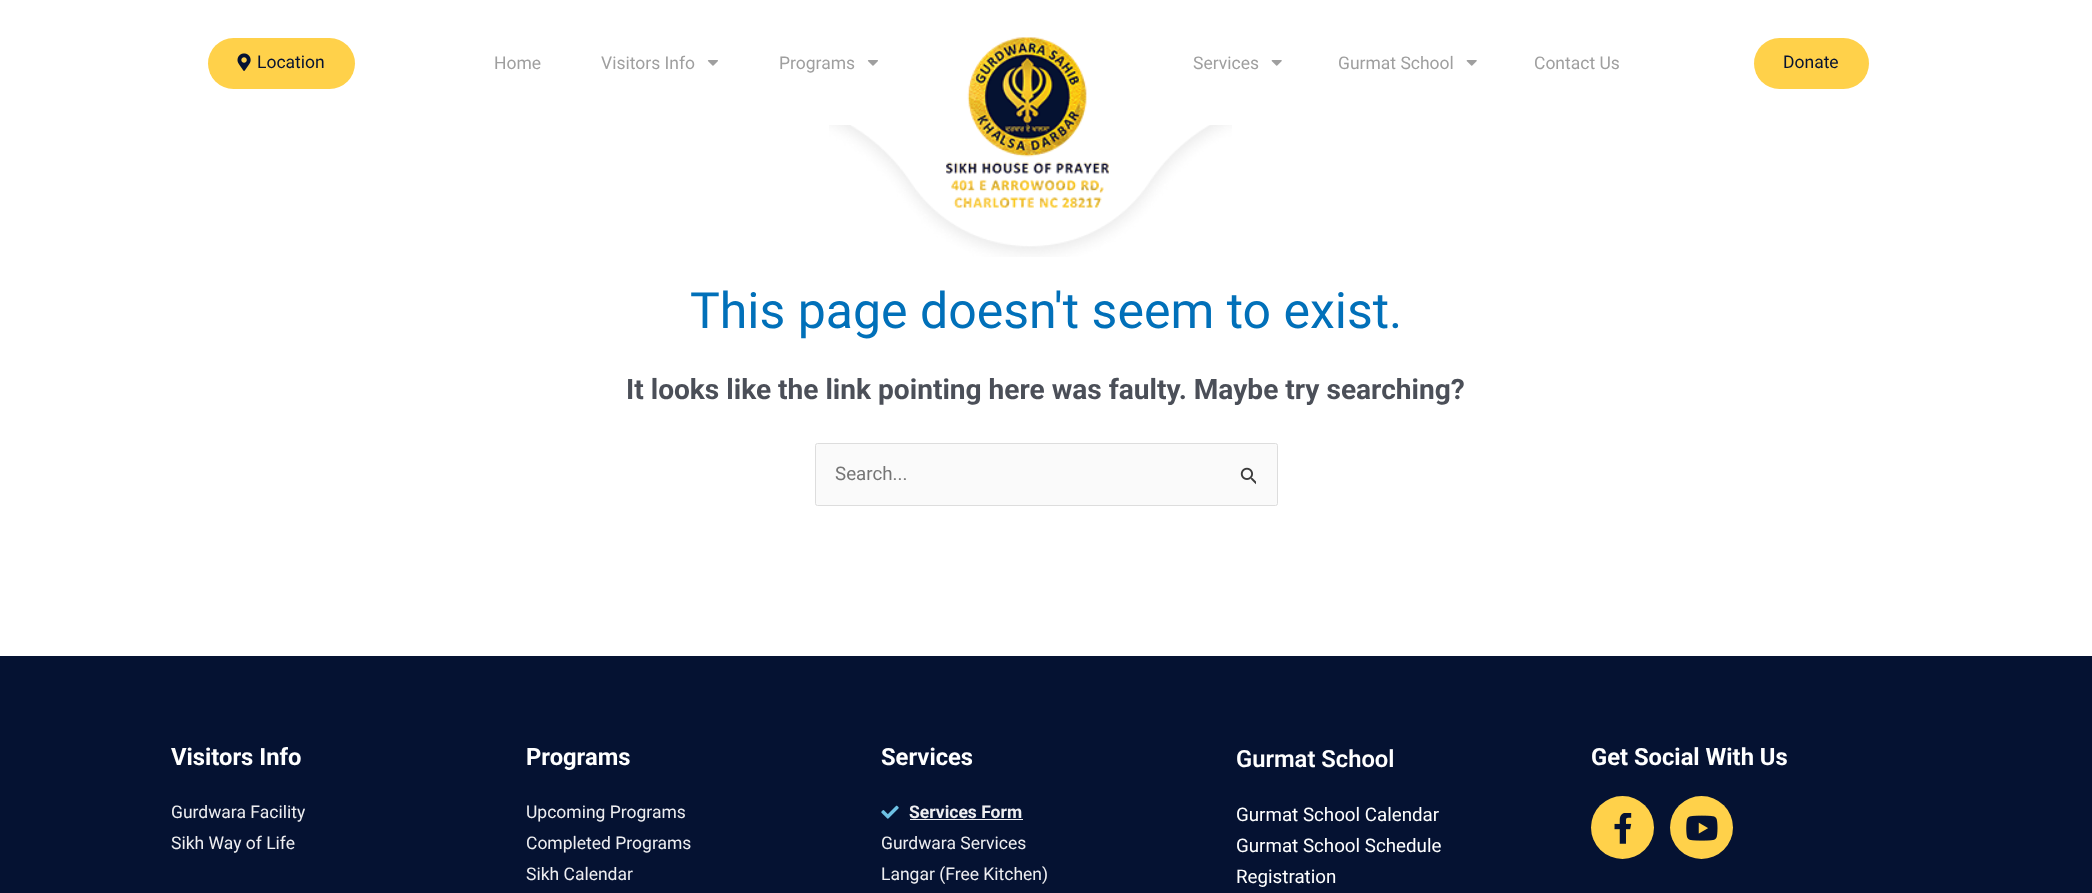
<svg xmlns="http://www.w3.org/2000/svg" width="2092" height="893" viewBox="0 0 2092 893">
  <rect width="100%" height="100%" fill="#ffffff"/>
  <rect x="208" y="38" width="147" height="51" rx="25.5" fill="#ffd14a"/>
  <image x="237" y="53" width="14" height="18" href="img1.png"/>
  <text x="257" y="68" font-family="Roboto" font-size="17.5" fill="#051232">Location</text>
  <text x="494" y="69" font-family="Roboto" font-size="17.5" fill="#9f9f9f">Home</text>
  <text x="601" y="69" font-family="Roboto" font-size="17.5" fill="#9f9f9f">Visitors Info</text>
  <image x="707" y="60" width="11" height="6" href="img2.png"/>
  <text x="779" y="69" font-family="Roboto" font-size="17.5" fill="#9f9f9f">Programs</text>
  <image x="867" y="60" width="11" height="6" href="img2.png"/>
  <image x="829" y="125" width="403" height="132" href="img5.png"/>
  <image x="946" y="37" width="163" height="171" href="img3.png"/>
  <text x="1193" y="69" font-family="Roboto" font-size="17.5" fill="#9f9f9f">Services</text>
  <image x="1271" y="60" width="11" height="6" href="img4.png"/>
  <text x="1338" y="69" font-family="Roboto" font-size="17.5" fill="#9f9f9f">Gurmat School</text>
  <image x="1466" y="60" width="11" height="6" href="img4.png"/>
  <text x="1534" y="69" font-family="Roboto" font-size="17.5" fill="#9f9f9f">Contact Us</text>
  <rect x="1754" y="38" width="115" height="51" rx="25.5" fill="#ffd14a"/>
  <text x="1783" y="68" font-family="Roboto" font-size="17.5" fill="#051232">Donate</text>
  <text x="690" y="328" font-family="Roboto" font-size="50" fill="#0170b9">This page doesn't seem to exist.</text>
  <text x="626" y="399" font-family="Roboto" font-size="28.1" font-weight="bold" fill="#4b4f58">It looks like the link pointing here was faulty. Maybe try searching?</text>
  <rect x="815.5" y="443.5" width="462" height="62" rx="2" fill="#fafafa" stroke="#dddddd"/>
  <text x="835" y="480" font-family="Roboto" font-size="18.75" fill="#757575">Search...</text>
  <image x="1240" y="467" width="16" height="18" href="img6.png"/>
  <rect x="0" y="656" width="2092" height="237" fill="#051232"/>
  <text x="171" y="765" font-family="Roboto" font-size="23.75" font-weight="bold" fill="#ffffff">Visitors Info</text>
  <text x="171" y="818" font-family="Roboto" font-size="17.5" fill="#eeeef1">Gurdwara Facility</text>
  <text x="171" y="849" font-family="Roboto" font-size="17.5" fill="#eeeef1">Sikh Way of Life</text>
  <text x="526" y="765" font-family="Roboto" font-size="23.75" font-weight="bold" fill="#ffffff">Programs</text>
  <text x="526" y="818" font-family="Roboto" font-size="17.5" fill="#eeeef1">Upcoming Programs</text>
  <text x="526" y="849" font-family="Roboto" font-size="17.5" fill="#eeeef1">Completed Programs</text>
  <text x="526" y="880" font-family="Roboto" font-size="17.5" fill="#eeeef1">Sikh Calendar</text>
  <text x="881" y="765" font-family="Roboto" font-size="23.75" font-weight="bold" fill="#ffffff">Services</text>
  <image x="881" y="805" width="18" height="14" href="img7.png"/>
  <text x="909" y="818" font-family="Roboto" font-size="17.5" font-weight="bold" fill="#eeeef1">Services Form</text>
  <rect x="910" y="819" width="113" height="1" fill="#eeeef1"/>
  <text x="881" y="849" font-family="Roboto" font-size="17.5" fill="#eeeef1">Gurdwara Services</text>
  <text x="881" y="880" font-family="Roboto" font-size="17.5" fill="#eeeef1">Langar (Free Kitchen)</text>
  <text x="1236" y="767" font-family="Roboto" font-size="23.75" font-weight="600" fill="#ffffff">Gurmat School</text>
  <text x="1236" y="821" font-family="Roboto" font-size="18.75" fill="#ffffff">Gurmat School Calendar</text>
  <text x="1236" y="852" font-family="Roboto" font-size="18.75" fill="#ffffff">Gurmat School Schedule</text>
  <text x="1236" y="883" font-family="Roboto" font-size="18.75" fill="#ffffff">Registration</text>
  <text x="1591" y="765" font-family="Roboto" font-size="23.75" font-weight="bold" fill="#ffffff">Get Social With Us</text>
  <circle cx="1622.5" cy="827.5" r="31.5" fill="#ffd14a"/>
  <image x="1614" y="813" width="18" height="31" href="img8.png"/>
  <circle cx="1701.5" cy="827.5" r="31.5" fill="#ffd14a"/>
  <image x="1686" y="815" width="32" height="26" href="img9.png"/>
</svg>
